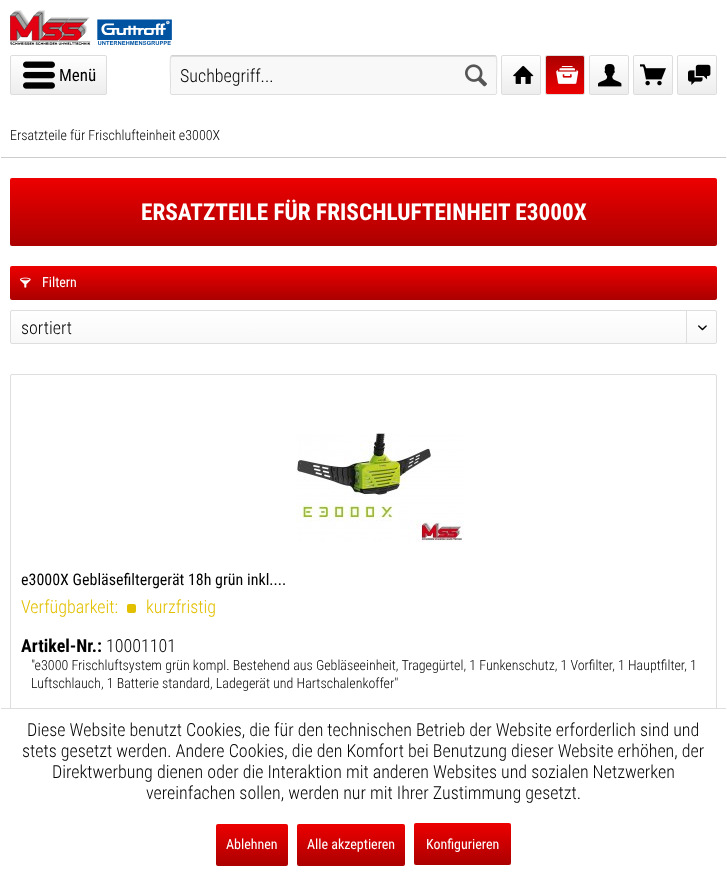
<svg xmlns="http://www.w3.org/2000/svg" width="727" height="876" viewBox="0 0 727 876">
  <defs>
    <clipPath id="clip1"><rect x="10" y="55" width="97" height="40" rx="2"/></clipPath>
    <linearGradient id="g1" gradientUnits="userSpaceOnUse" x1="59" y1="56" x2="59" y2="94"><stop offset="0" stop-color="#ffffff"/><stop offset="1" stop-color="#ededed"/></linearGradient>
    <linearGradient id="g2" gradientUnits="userSpaceOnUse" x1="521" y1="56" x2="521" y2="94"><stop offset="0" stop-color="#ffffff"/><stop offset="1" stop-color="#ededed"/></linearGradient>
    <linearGradient id="g3" gradientUnits="userSpaceOnUse" x1="565" y1="56" x2="565" y2="94"><stop offset="0" stop-color="#ab0000"/><stop offset="1" stop-color="#ed0000"/></linearGradient>
    <linearGradient id="g4" gradientUnits="userSpaceOnUse" x1="609" y1="56" x2="609" y2="94"><stop offset="0" stop-color="#ffffff"/><stop offset="1" stop-color="#ededed"/></linearGradient>
    <linearGradient id="g5" gradientUnits="userSpaceOnUse" x1="653" y1="56" x2="653" y2="94"><stop offset="0" stop-color="#ffffff"/><stop offset="1" stop-color="#ededed"/></linearGradient>
    <linearGradient id="g6" gradientUnits="userSpaceOnUse" x1="697" y1="56" x2="697" y2="94"><stop offset="0" stop-color="#ffffff"/><stop offset="1" stop-color="#ededed"/></linearGradient>
    <linearGradient id="g7" gradientUnits="userSpaceOnUse" x1="364" y1="178" x2="364" y2="246"><stop offset="0" stop-color="#ed0000"/><stop offset="1" stop-color="#ab0000"/></linearGradient>
    <linearGradient id="g8" gradientUnits="userSpaceOnUse" x1="364" y1="266" x2="364" y2="300"><stop offset="0" stop-color="#ed0000"/><stop offset="1" stop-color="#ab0000"/></linearGradient>
    <linearGradient id="g9" gradientUnits="userSpaceOnUse" x1="364" y1="311" x2="364" y2="343"><stop offset="0" stop-color="#ffffff"/><stop offset="1" stop-color="#f8f8f8"/></linearGradient>
    <linearGradient id="g10" gradientUnits="userSpaceOnUse" x1="252" y1="824" x2="252" y2="866"><stop offset="0" stop-color="#ed0000"/><stop offset="1" stop-color="#ab0000"/></linearGradient>
    <linearGradient id="g11" gradientUnits="userSpaceOnUse" x1="351" y1="824" x2="351" y2="866"><stop offset="0" stop-color="#ed0000"/><stop offset="1" stop-color="#ab0000"/></linearGradient>
    <linearGradient id="g12" gradientUnits="userSpaceOnUse" x1="463" y1="823" x2="463" y2="865"><stop offset="0" stop-color="#ed0000"/><stop offset="1" stop-color="#ab0000"/></linearGradient>
  </defs>
  <rect width="100%" height="100%" fill="#ffffff"/>
  <image x="10" y="10" width="162" height="35" href="img1.png"/>
  <g clip-path="url(#clip1)">
    <rect x="10" y="56" width="97" height="38" fill="url(#g1)"/>
  </g>
  <rect x="10.5" y="55.5" width="96" height="39" rx="1.5" fill="none" stroke="#dddddd"/>
  <image x="23" y="61" width="32" height="28" href="img2.png"/>
  <text x="59" y="81" font-family="Roboto Condensed" font-size="17" fill="#000000">Menü</text>
  <rect x="170" y="55" width="327" height="40" rx="2" fill="#f8f8f8"/>
  <path d="M172 57H495L496 58V57L495 56H172C171 56 171 57 171 58Z" fill="#dedede"/>
  <path d="M171 56L172 55.5H495L496 56" fill="none" stroke="#d1d1d1"/>
  <path d="M496 56C497.5 57 496.5 78 496.5 81V87C496.5 90 497.5 94.5 495 94.5H172C169.5 94.5 170.5 90 170.5 87V81C170.5 78 169.5 57 171 56" fill="none" stroke="#dedede"/>
  <text x="180" y="82" font-family="Roboto Condensed" font-size="18" font-weight="300" fill="#000000">Suchbegriff...</text>
  <image x="465" y="64" width="22" height="23" href="img3.png"/>
  <rect x="502" y="56" width="38" height="38" rx="1" fill="url(#g2)"/>
  <rect x="501.5" y="55.5" width="39" height="39" rx="1.5" fill="none" stroke="#dddddd"/>
  <image x="513" y="65" width="21" height="19" href="img4.png"/>
  <rect x="546" y="56" width="38" height="38" rx="1" fill="url(#g3)"/>
  <rect x="545.5" y="55.5" width="39" height="39" rx="1.5" fill="none" stroke="#dddddd"/>
  <image x="556" y="66" width="23" height="18" href="img5.png"/>
  <rect x="590" y="56" width="38" height="38" rx="1" fill="url(#g4)"/>
  <rect x="589.5" y="55.5" width="39" height="39" rx="1.5" fill="none" stroke="#dddddd"/>
  <image x="598" y="64" width="24" height="23" href="img6.png"/>
  <rect x="634" y="56" width="38" height="38" rx="1" fill="url(#g5)"/>
  <rect x="633.5" y="55.5" width="39" height="39" rx="1.5" fill="none" stroke="#dddddd"/>
  <image x="640" y="64" width="26" height="22" href="img7.png"/>
  <rect x="678" y="56" width="38" height="38" rx="1" fill="url(#g6)"/>
  <rect x="677.5" y="55.5" width="39" height="39" rx="1.5" fill="none" stroke="#dddddd"/>
  <image x="688" y="64" width="23" height="21" href="img8.png"/>
  <rect x="1" y="157" width="725" height="1" fill="#cccccc"/>
  <text x="10" y="140" font-family="Roboto Condensed" font-size="14" font-weight="300" fill="#000000">Ersatzteile für Frischlufteinheit e3000X</text>
  <rect x="10" y="178" width="707" height="68" rx="2" fill="url(#g7)"/>
  <text x="141" y="220" font-family="Roboto Condensed" font-size="23.25" font-weight="bold" fill="#ffffff">ERSATZTEILE FÜR FRISCHLUFTEINHEIT E3000X</text>
  <rect x="10" y="266" width="707" height="34" rx="2" fill="url(#g8)"/>
  <image x="20" y="277" width="11" height="11" href="img9.png"/>
  <text x="42" y="287" font-family="Roboto Condensed" font-size="14" fill="#ffffff">Filtern</text>
  <rect x="11" y="311" width="705" height="32" rx="1" fill="url(#g9)"/>
  <rect x="10.5" y="310.5" width="706" height="33" rx="1.5" fill="none" stroke="#dedede"/>
  <text x="21" y="334" font-family="Roboto Condensed" font-size="18" font-weight="300" fill="#000000">sortiert</text>
  <rect x="686" y="311" width="1" height="33" fill="#dedede"/>
  <image x="698" y="325" width="9" height="6" href="img10.png"/>
  <rect x="10.5" y="374.5" width="706" height="466" rx="1.5" fill="none" stroke="#dedede"/>
  <image x="296" y="433" width="168" height="109" href="img11.png"/>
  <text x="21" y="585" font-family="Roboto Condensed" font-size="16" fill="#000000">e3000X Gebläsefiltergerät 18h grün inkl....</text>
  <text x="21" y="613" font-family="Roboto Condensed" font-size="18" font-weight="300" fill="#e2c000">Verfügbarkeit:</text>
  <rect x="127" y="604" width="9" height="9" rx="2" fill="#e2c000"/>
  <text x="146" y="613" font-family="Roboto Condensed" font-size="18" font-weight="300" fill="#e2c000">kurzfristig</text>
  <text x="21" y="652" font-family="Roboto Condensed" font-size="18" font-weight="bold" fill="#000000">Artikel-Nr.:</text>
  <text x="106" y="652" font-family="Roboto Condensed" font-size="18" font-weight="300" fill="#000000">10001101</text>
  <text x="31" y="670" font-family="Roboto Condensed" font-size="14" font-weight="300" fill="#000000">"e3000 Frischluftsystem grün kompl. Bestehend aus Gebläseeinheit, Tragegürtel, 1 Funkenschutz, 1 Vorfilter, 1 Hauptfilter, 1</text>
  <text x="31" y="688" font-family="Roboto Condensed" font-size="14" font-weight="300" fill="#000000">Luftschlauch, 1 Batterie standard, Ladegerät und Hartschalenkoffer"</text>
  <rect x="0" y="708" width="727" height="168" rx="2" fill="#ffffff"/>
  <rect x="1" y="708" width="725" height="1" fill="#dedede"/>
  <text x="27" y="736" font-family="Roboto Condensed" font-size="18" font-weight="300" fill="#000000">Diese Website benutzt Cookies, die für den technischen Betrieb der Website erforderlich sind und</text>
  <text x="22" y="757" font-family="Roboto Condensed" font-size="18" font-weight="300" fill="#000000">stets gesetzt werden. Andere Cookies, die den Komfort bei Benutzung dieser Website erhöhen, der</text>
  <text x="52" y="778" font-family="Roboto Condensed" font-size="18" font-weight="300" fill="#000000">Direktwerbung dienen oder die Interaktion mit anderen Websites und sozialen Netzwerken</text>
  <text x="146" y="799" font-family="Roboto Condensed" font-size="18" font-weight="300" fill="#000000">vereinfachen sollen, werden nur mit Ihrer Zustimmung gesetzt.</text>
  <rect x="216" y="824" width="72" height="42" rx="2" fill="url(#g10)"/>
  <text x="226" y="849" font-family="Roboto Condensed" font-size="14" fill="#ffffff">Ablehnen</text>
  <rect x="297" y="824" width="108" height="42" rx="2" fill="url(#g11)"/>
  <text x="307" y="849" font-family="Roboto Condensed" font-size="14" fill="#ffffff">Alle akzeptieren</text>
  <rect x="414" y="823" width="97" height="42" rx="2" fill="url(#g12)"/>
  <text x="426" y="849" font-family="Roboto Condensed" font-size="14" fill="#ffffff">Konfigurieren</text>
</svg>
